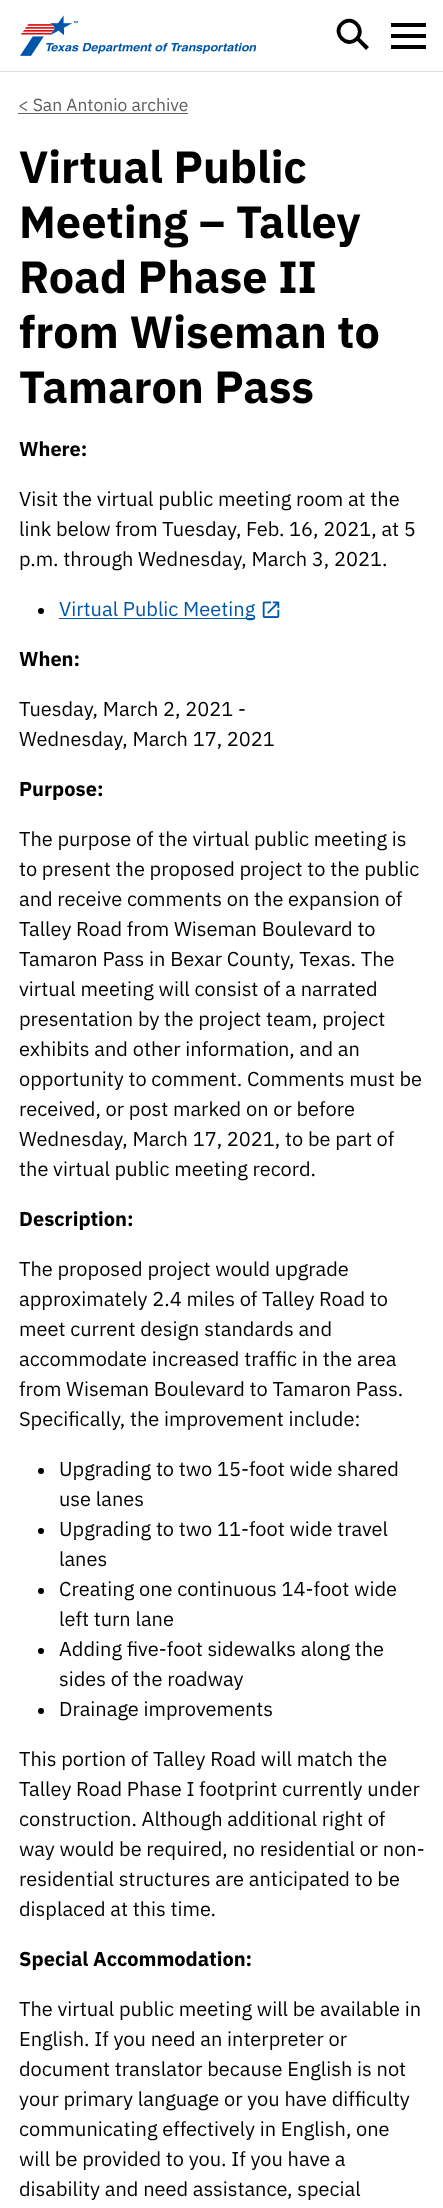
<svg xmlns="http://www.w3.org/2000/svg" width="443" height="2208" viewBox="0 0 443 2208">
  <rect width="100%" height="100%" fill="#ffffff"/>
  <rect x="0" y="71" width="443" height="1" fill="#dedede"/>
  <image x="20" y="15" width="236" height="41" href="img1.png"/>
  <path d="M355 38.5L357.5 36L369 47L366 50Z" fill="#000000"/>
  <path d="M341.5 24C351.5 14 366.5 29 356.5 39C347 48.5 332 33.5 341.5 24Z" fill="none" stroke="#000000" stroke-width="3.8"/>
  <rect x="391" y="34" width="35" height="4" fill="#000000"/>
  <rect x="391" y="23" width="35" height="4" fill="#000000"/>
  <rect x="391" y="45" width="35" height="4" fill="#000000"/>
  <text x="18" y="111" font-family="IBM Plex Sans" font-size="17.5" fill="#5e5e5e">&lt; San Antonio archive</text>
  <rect x="18" y="113" width="170" height="1" fill="#5e5e5e"/>
  <text x="19" y="183" font-family="IBM Plex Sans" font-size="45" font-weight="bold" fill="#000000">Virtual Public</text>
  <text x="19" y="238" font-family="IBM Plex Sans" font-size="45" font-weight="bold" fill="#000000">Meeting – Talley</text>
  <text x="19" y="293" font-family="IBM Plex Sans" font-size="45" font-weight="bold" fill="#000000">Road Phase II</text>
  <text x="19" y="348" font-family="IBM Plex Sans" font-size="45" font-weight="bold" fill="#000000">from Wiseman to</text>
  <text x="19" y="403" font-family="IBM Plex Sans" font-size="45" font-weight="bold" fill="#000000">Tamaron Pass</text>
  <text x="19" y="456" font-family="IBM Plex Sans" font-size="20" font-weight="bold" fill="#000000">Where:</text>
  <text x="19" y="506" font-family="IBM Plex Sans" font-size="20" fill="#000000">Visit the virtual public meeting room at the</text>
  <text x="19" y="536" font-family="IBM Plex Sans" font-size="20" fill="#000000">link below from Tuesday, Feb. 16, 2021, at 5</text>
  <text x="19" y="566" font-family="IBM Plex Sans" font-size="20" fill="#000000">p.m. through Wednesday, March 3, 2021.</text>
  <circle cx="41" cy="611" r="3" fill="#000000"/>
  <rect x="59" y="618" width="196" height="1" fill="#0057a8"/>
  <text x="59" y="616" font-family="IBM Plex Sans" font-size="20" fill="#0057a8">Virtual Public Meeting</text>
  <image x="262" y="601" width="18" height="17" href="img2.png"/>
  <text x="19" y="666" font-family="IBM Plex Sans" font-size="20" font-weight="bold" fill="#000000">When:</text>
  <text x="19" y="716" font-family="IBM Plex Sans" font-size="20" fill="#000000">Tuesday, March 2, 2021 -</text>
  <text x="19" y="746" font-family="IBM Plex Sans" font-size="20" fill="#000000">Wednesday, March 17, 2021</text>
  <text x="19" y="796" font-family="IBM Plex Sans" font-size="20" font-weight="bold" fill="#000000">Purpose:</text>
  <text x="19" y="846" font-family="IBM Plex Sans" font-size="20" fill="#000000">The purpose of the virtual public meeting is</text>
  <text x="19" y="876" font-family="IBM Plex Sans" font-size="20" fill="#000000">to present the proposed project to the public</text>
  <text x="19" y="906" font-family="IBM Plex Sans" font-size="20" fill="#000000">and receive comments on the expansion of</text>
  <text x="19" y="936" font-family="IBM Plex Sans" font-size="20" fill="#000000">Talley Road from Wiseman Boulevard to</text>
  <text x="19" y="966" font-family="IBM Plex Sans" font-size="20" fill="#000000">Tamaron Pass in Bexar County, Texas. The</text>
  <text x="19" y="996" font-family="IBM Plex Sans" font-size="20" fill="#000000">virtual meeting will consist of a narrated</text>
  <text x="19" y="1026" font-family="IBM Plex Sans" font-size="20" fill="#000000">presentation by the project team, project</text>
  <text x="19" y="1056" font-family="IBM Plex Sans" font-size="20" fill="#000000">exhibits and other information, and an</text>
  <text x="19" y="1086" font-family="IBM Plex Sans" font-size="20" fill="#000000">opportunity to comment. Comments must be</text>
  <text x="19" y="1116" font-family="IBM Plex Sans" font-size="20" fill="#000000">received, or post marked on or before</text>
  <text x="19" y="1146" font-family="IBM Plex Sans" font-size="20" fill="#000000">Wednesday, March 17, 2021, to be part of</text>
  <text x="19" y="1176" font-family="IBM Plex Sans" font-size="20" fill="#000000">the virtual public meeting record.</text>
  <text x="19" y="1226" font-family="IBM Plex Sans" font-size="20" font-weight="bold" fill="#000000">Description:</text>
  <text x="19" y="1276" font-family="IBM Plex Sans" font-size="20" fill="#000000">The proposed project would upgrade</text>
  <text x="19" y="1306" font-family="IBM Plex Sans" font-size="20" fill="#000000">approximately 2.4 miles of Talley Road to</text>
  <text x="19" y="1336" font-family="IBM Plex Sans" font-size="20" fill="#000000">meet current design standards and</text>
  <text x="19" y="1366" font-family="IBM Plex Sans" font-size="20" fill="#000000">accommodate increased traffic in the area</text>
  <text x="19" y="1396" font-family="IBM Plex Sans" font-size="20" fill="#000000">from Wiseman Boulevard to Tamaron Pass.</text>
  <text x="19" y="1426" font-family="IBM Plex Sans" font-size="20" fill="#000000">Specifically, the improvement include:</text>
  <circle cx="41" cy="1471" r="3" fill="#000000"/>
  <text x="59" y="1476" font-family="IBM Plex Sans" font-size="20" fill="#000000">Upgrading to two 15-foot wide shared</text>
  <text x="59" y="1506" font-family="IBM Plex Sans" font-size="20" fill="#000000">use lanes</text>
  <circle cx="41" cy="1531" r="3" fill="#000000"/>
  <text x="59" y="1536" font-family="IBM Plex Sans" font-size="20" fill="#000000">Upgrading to two 11-foot wide travel</text>
  <text x="59" y="1566" font-family="IBM Plex Sans" font-size="20" fill="#000000">lanes</text>
  <circle cx="41" cy="1591" r="3" fill="#000000"/>
  <text x="59" y="1596" font-family="IBM Plex Sans" font-size="20" fill="#000000">Creating one continuous 14-foot wide</text>
  <text x="59" y="1626" font-family="IBM Plex Sans" font-size="20" fill="#000000">left turn lane</text>
  <circle cx="41" cy="1651" r="3" fill="#000000"/>
  <text x="59" y="1656" font-family="IBM Plex Sans" font-size="20" fill="#000000">Adding five-foot sidewalks along the</text>
  <text x="59" y="1686" font-family="IBM Plex Sans" font-size="20" fill="#000000">sides of the roadway</text>
  <circle cx="41" cy="1711" r="3" fill="#000000"/>
  <text x="59" y="1716" font-family="IBM Plex Sans" font-size="20" fill="#000000">Drainage improvements</text>
  <text x="19" y="1766" font-family="IBM Plex Sans" font-size="20" fill="#000000">This portion of Talley Road will match the</text>
  <text x="19" y="1796" font-family="IBM Plex Sans" font-size="20" fill="#000000">Talley Road Phase I footprint currently under</text>
  <text x="19" y="1826" font-family="IBM Plex Sans" font-size="20" fill="#000000">construction. Although additional right of</text>
  <text x="19" y="1856" font-family="IBM Plex Sans" font-size="20" fill="#000000">way would be required, no residential or non-</text>
  <text x="19" y="1886" font-family="IBM Plex Sans" font-size="20" fill="#000000">residential structures are anticipated to be</text>
  <text x="19" y="1916" font-family="IBM Plex Sans" font-size="20" fill="#000000">displaced at this time.</text>
  <text x="19" y="1966" font-family="IBM Plex Sans" font-size="20" font-weight="bold" fill="#000000">Special Accommodation:</text>
  <text x="19" y="2016" font-family="IBM Plex Sans" font-size="20" fill="#000000">The virtual public meeting will be available in</text>
  <text x="19" y="2046" font-family="IBM Plex Sans" font-size="20" fill="#000000">English. If you need an interpreter or</text>
  <text x="19" y="2076" font-family="IBM Plex Sans" font-size="20" fill="#000000">document translator because English is not</text>
  <text x="19" y="2106" font-family="IBM Plex Sans" font-size="20" fill="#000000">your primary language or you have difficulty</text>
  <text x="19" y="2136" font-family="IBM Plex Sans" font-size="20" fill="#000000">communicating effectively in English, one</text>
  <text x="19" y="2166" font-family="IBM Plex Sans" font-size="20" fill="#000000">will be provided to you. If you have a</text>
  <text x="19" y="2196" font-family="IBM Plex Sans" font-size="20" fill="#000000">disability and need assistance, special</text>
</svg>
